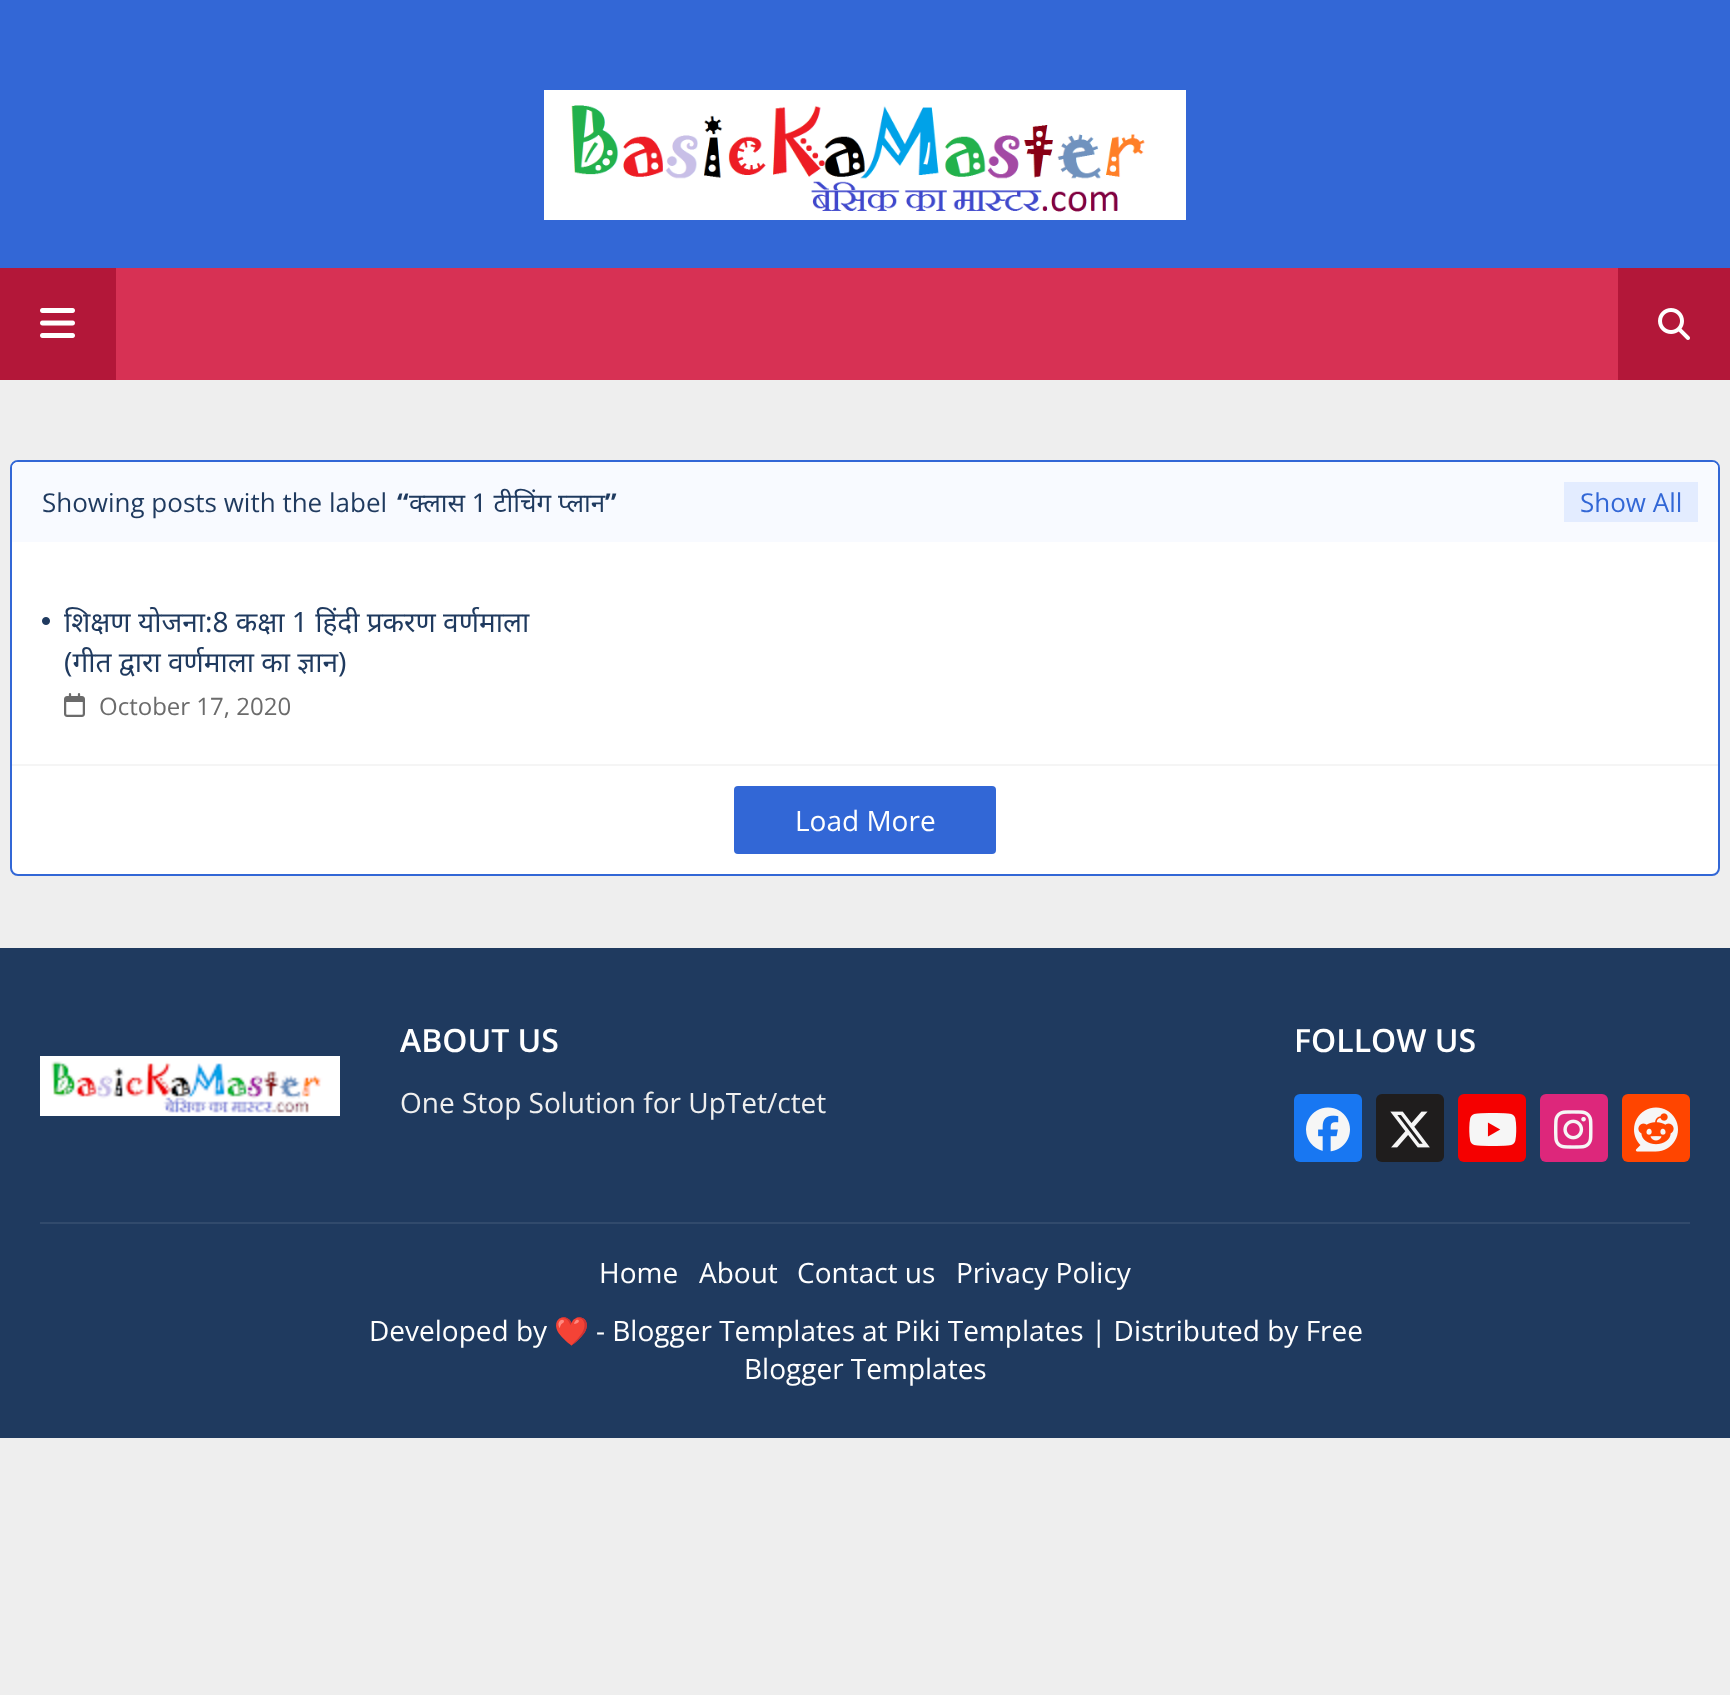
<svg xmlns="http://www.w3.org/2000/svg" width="1730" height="1695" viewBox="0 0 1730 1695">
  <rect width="100%" height="100%" fill="#eeeeee"/>
  <rect x="0" y="0" width="1730" height="268" fill="#3367d6"/>
  <image x="544" y="90" width="642" height="130" href="img1.png"/>
  <rect x="116" y="268" width="1502" height="112" fill="#d73154"/>
  <rect x="0" y="268" width="116" height="112" fill="#b31739"/>
  <image x="40" y="308" width="35" height="30" href="img2.png"/>
  <rect x="1618" y="268" width="112" height="112" fill="#b31739"/>
  <image x="1658" y="308" width="32" height="32" href="img3.png"/>
  <rect x="11" y="461" width="1708" height="414" rx="7" fill="#ffffff" stroke="#3267d6" stroke-width="2"/>
  <path d="M18 462H1712C1715.5 462 1718 464.5 1718 468V542H12V468C12 464.5 14.5 462 18 462Z" fill="#f8faff"/>
  <text x="42" y="512" font-family="Open Sans" font-size="26" fill="#1f3a5f">Showing posts with the label</text>
  <text x="397" y="512" font-family="Open Sans" font-size="26" font-weight="bold" fill="#1f3a5f">“</text>
  <text x="409" y="512" font-family="Noto Sans" font-size="26" fill="#1f3a5f">क्लास 1 टीचिंग प्लान</text>
  <text x="605" y="512" font-family="Open Sans" font-size="26" font-weight="bold" fill="#1f3a5f">”</text>
  <rect x="1564" y="482" width="134" height="40" fill="#e3ecff"/>
  <text x="1580" y="512" font-family="Open Sans" font-size="26" fill="#3267d6">Show All</text>
  <image x="42" y="617" width="8" height="8" href="img4.png"/>
  <text x="64" y="632" font-family="Noto Sans" font-size="28" fill="#1f3a5f">शिक्षण योजना:8 कक्षा 1 हिंदी प्रकरण वर्णमाला</text>
  <text x="64" y="672" font-family="Noto Sans" font-size="28" fill="#1f3a5f">(गीत द्वारा वर्णमाला का ज्ञान)</text>
  <image x="64" y="693" width="21" height="24" href="img5.png"/>
  <text x="99" y="715" font-family="Open Sans" font-size="24" fill="#6b6b6b">October 17, 2020</text>
  <rect x="12" y="764" width="1706" height="2" fill="#f5f5f5"/>
  <rect x="734" y="786" width="262" height="68" rx="4" fill="#3267d6"/>
  <text x="795" y="831" font-family="Open Sans" font-size="28" fill="#ffffff">Load More</text>
  <rect x="0" y="948" width="1730" height="490" fill="#1f3a5f"/>
  <image x="40" y="1056" width="300" height="60" href="img6.png"/>
  <text x="400" y="1052" font-family="Open Sans" font-size="32" font-weight="600" fill="#ffffff">ABOUT US</text>
  <text x="400" y="1113" font-family="Open Sans" font-size="28" fill="#efefef">One Stop Solution for UpTet/ctet</text>
  <text x="1294" y="1052" font-family="Open Sans" font-size="32" font-weight="600" fill="#ffffff">FOLLOW US</text>
  <rect x="1294" y="1094" width="68" height="68" rx="6" fill="#1877f2"/>
  <image x="1306" y="1107" width="44" height="45" href="img7.png"/>
  <rect x="1376" y="1094" width="68" height="68" rx="6" fill="#1f1d1d"/>
  <image x="1390" y="1111" width="40" height="37" href="img8.png"/>
  <rect x="1458" y="1094" width="68" height="68" rx="6" fill="#f50000"/>
  <image x="1469" y="1113" width="48" height="33" href="img9.png"/>
  <rect x="1540" y="1094" width="68" height="68" rx="6" fill="#dd277b"/>
  <image x="1554" y="1110" width="39" height="39" href="img10.png"/>
  <rect x="1622" y="1094" width="68" height="68" rx="6" fill="#ff4500"/>
  <image x="1634" y="1107" width="44" height="45" href="img11.png"/>
  <rect x="40" y="1222" width="1650" height="2" fill="#314a6c"/>
  <text x="599" y="1283" font-family="Open Sans" font-size="28" fill="#ffffff">Home</text>
  <text x="699" y="1283" font-family="Open Sans" font-size="28" fill="#ffffff">About</text>
  <text x="797" y="1283" font-family="Open Sans" font-size="28" fill="#ffffff">Contact us</text>
  <text x="956" y="1283" font-family="Open Sans" font-size="28" fill="#ffffff">Privacy Policy</text>
  <text x="369" y="1341" font-family="Open Sans" font-size="28" fill="#ffffff">Developed by</text>
  <text x="554" y="1341" font-family="Noto Color Emoji" font-size="28" fill="#ffffff">❤️</text>
  <text x="596" y="1341" font-family="Open Sans" font-size="28" fill="#ffffff">- Blogger Templates</text>
  <text x="862" y="1341" font-family="Open Sans" font-size="28" fill="#ffffff">at Piki Templates | Distributed by Free</text>
  <text x="744" y="1379" font-family="Open Sans" font-size="28" fill="#ffffff">Blogger Templates</text>
</svg>
